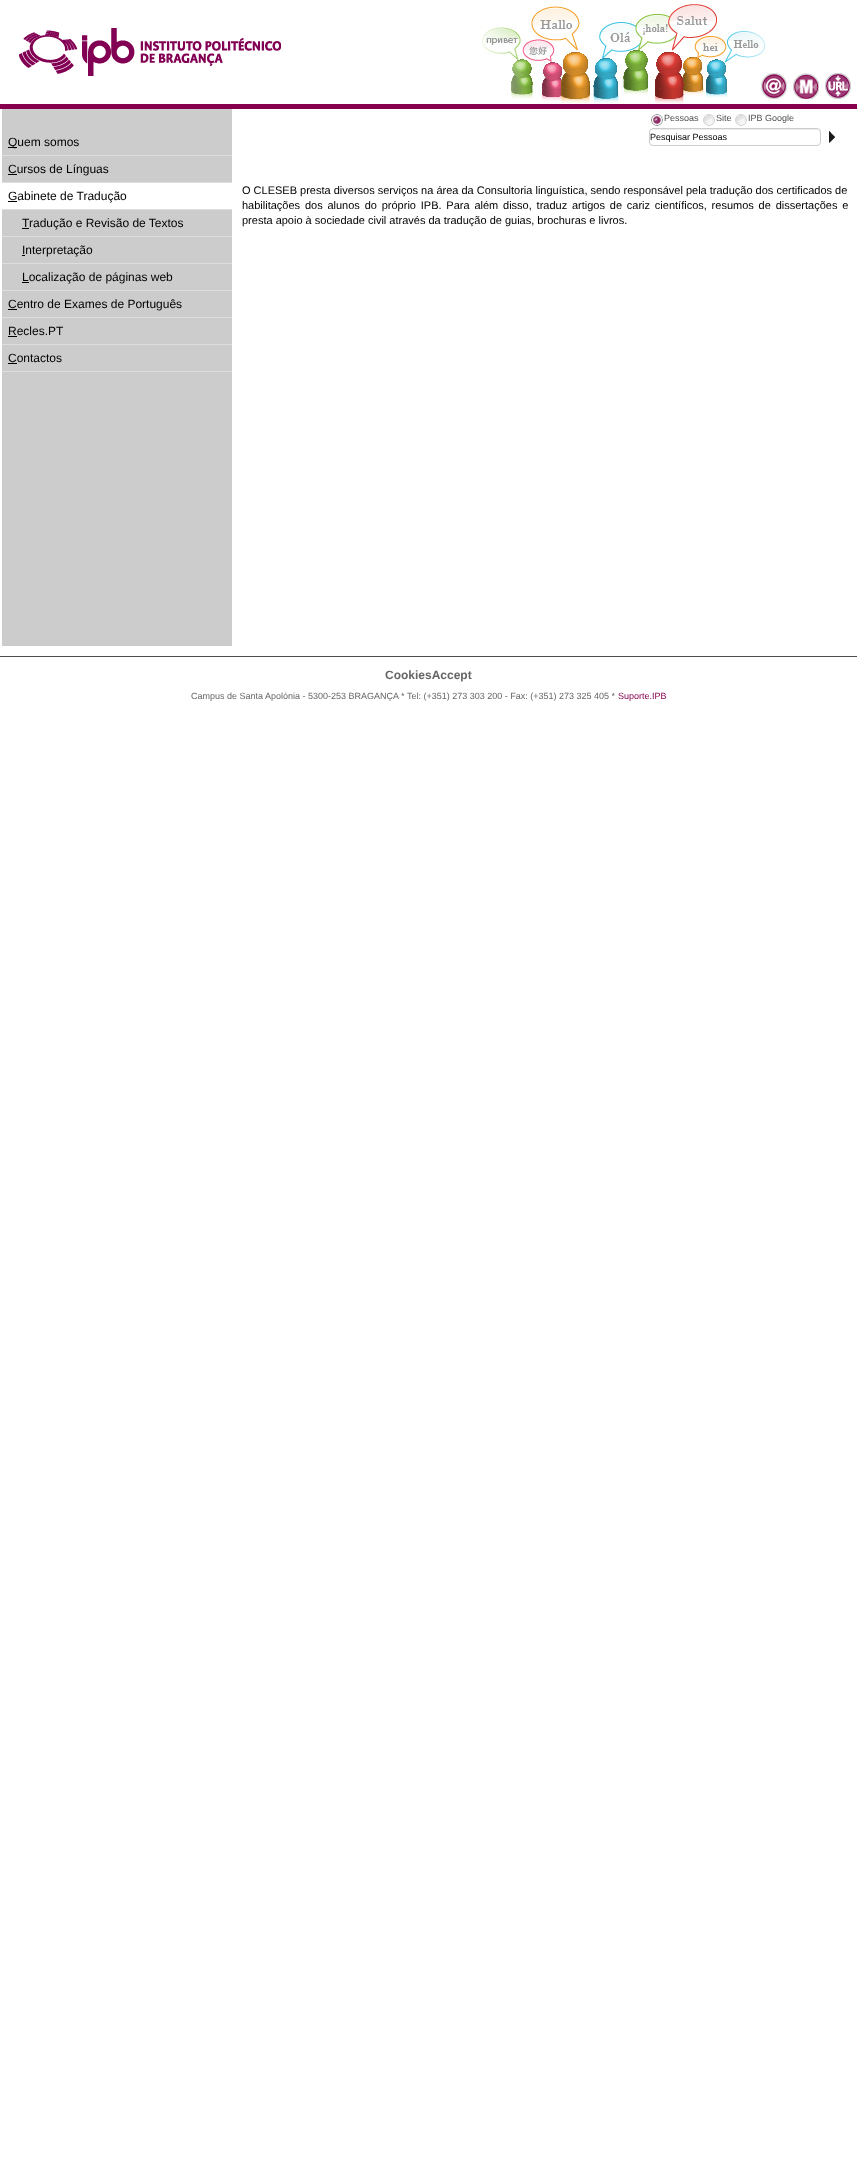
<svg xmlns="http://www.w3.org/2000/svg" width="857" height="2159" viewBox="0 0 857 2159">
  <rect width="100%" height="100%" fill="#ffffff"/>
  <image x="480" y="0" width="287" height="104" href="img1.png"/>
  <image x="19" y="28" width="262" height="48" href="img2.png"/>
  <image x="761" y="73" width="26" height="26" href="img3.png"/>
  <image x="793" y="73" width="26" height="26" href="img4.png"/>
  <image x="825" y="73" width="26" height="26" href="img5.png"/>
  <rect x="0" y="104" width="857" height="5" fill="#87004e"/>
  <rect x="2" y="109" width="230" height="537" fill="#cccccc"/>
  <rect x="2" y="155" width="230" height="1" fill="#dddddd"/>
  <rect x="8" y="147" width="9" height="1" fill="#000000"/>
  <text x="8" y="146" font-family="Liberation Sans" font-size="12" fill="#000000">Quem somos</text>
  <rect x="2" y="182" width="230" height="1" fill="#dddddd"/>
  <rect x="8" y="174" width="9" height="1" fill="#000000"/>
  <text x="8" y="173" font-family="Liberation Sans" font-size="12" fill="#000000">Cursos de Línguas</text>
  <rect x="2" y="183" width="230" height="26" fill="#ffffff"/>
  <rect x="2" y="209" width="230" height="1" fill="#dddddd"/>
  <rect x="8" y="201" width="9" height="1" fill="#000000"/>
  <text x="8" y="200" font-family="Liberation Sans" font-size="12" fill="#000000">Gabinete de Tradução</text>
  <rect x="2" y="236" width="230" height="1" fill="#dddddd"/>
  <text x="22" y="227" font-family="Liberation Sans" font-size="12" fill="#000000">T</text>
  <rect x="22" y="228" width="7" height="1" fill="#000000"/>
  <text x="29" y="227" font-family="Liberation Sans" font-size="12" fill="#000000">radução e Revisão de Textos</text>
  <rect x="2" y="263" width="230" height="1" fill="#dddddd"/>
  <rect x="22" y="255" width="3" height="1" fill="#000000"/>
  <text x="22" y="254" font-family="Liberation Sans" font-size="12" fill="#000000">Interpretação</text>
  <rect x="2" y="290" width="230" height="1" fill="#dddddd"/>
  <rect x="22" y="282" width="7" height="1" fill="#000000"/>
  <text x="22" y="281" font-family="Liberation Sans" font-size="12" fill="#000000">Localização de páginas web</text>
  <rect x="2" y="317" width="230" height="1" fill="#dddddd"/>
  <rect x="8" y="309" width="9" height="1" fill="#000000"/>
  <text x="8" y="308" font-family="Liberation Sans" font-size="12" fill="#000000">Centro de Exames de Português</text>
  <rect x="2" y="344" width="230" height="1" fill="#dddddd"/>
  <text x="8" y="335" font-family="Liberation Sans" font-size="12" fill="#000000">Recles.PT</text>
  <rect x="8" y="336" width="9" height="1" fill="#000000"/>
  <rect x="2" y="371" width="230" height="1" fill="#dddddd"/>
  <text x="8" y="362" font-family="Liberation Sans" font-size="12" fill="#000000">Contactos</text>
  <rect x="8" y="363" width="9" height="1" fill="#000000"/>
  <image x="651" y="114" width="12" height="12" href="img6.png"/>
  <text x="664" y="121" font-family="Liberation Sans" font-size="9" fill="#4d4d4d">Pessoas</text>
  <image x="703" y="114" width="12" height="12" href="img7.png"/>
  <text x="716" y="121" font-family="Liberation Sans" font-size="9" fill="#4d4d4d">Site</text>
  <image x="735" y="114" width="12" height="12" href="img7.png"/>
  <text x="748" y="121" font-family="Liberation Sans" font-size="9" fill="#4d4d4d">IPB Google</text>
  <path d="M653 130H817C819 130 820 131 820 133V132C820 130 819 129 817 129H653C651 129 650 130 650 132V133C650 131 651 130 653 130Z" fill="#ececec"/>
  <rect x="649.5" y="128.5" width="171" height="17" rx="3.5" fill="none" stroke="#cccccc"/>
  <text x="650" y="140" font-family="Liberation Sans" font-size="9" fill="#000000">Pesquisar Pessoas</text>
  <image x="829" y="131" width="6" height="12" href="img8.png"/>
  <text x="242" y="194" font-family="Liberation Sans" font-size="11" fill="#000000">O CLESEB presta diversos serviços na área da Consultoria linguística, sendo responsável pela tradução dos certificados de</text>
  <text x="242" y="209" word-spacing="1.75" font-family="Liberation Sans" font-size="11" fill="#000000">habilitações dos alunos do próprio IPB. Para além disso, traduz artigos de cariz científicos, resumos de dissertações e</text>
  <text x="242" y="224" font-family="Liberation Sans" font-size="11" fill="#000000">presta apoio à sociedade civil através da tradução de guias, brochuras e livros.</text>
  <rect x="0" y="656" width="857" height="1" fill="#4d4d4d"/>
  <text x="385" y="679" font-family="Liberation Sans" font-size="12" font-weight="bold" fill="#666666">CookiesAccept</text>
  <text x="191" y="699" font-family="Liberation Sans" font-size="9" fill="#666666">Campus de Santa Apolónia - 5300-253 BRAGANÇA * Tel: (+351) 273 303 200 - Fax: (+351) 273 325 405 *</text>
  <text x="618" y="699" font-family="Liberation Sans" font-size="9" fill="#87004e">Suporte.IPB</text>
</svg>
